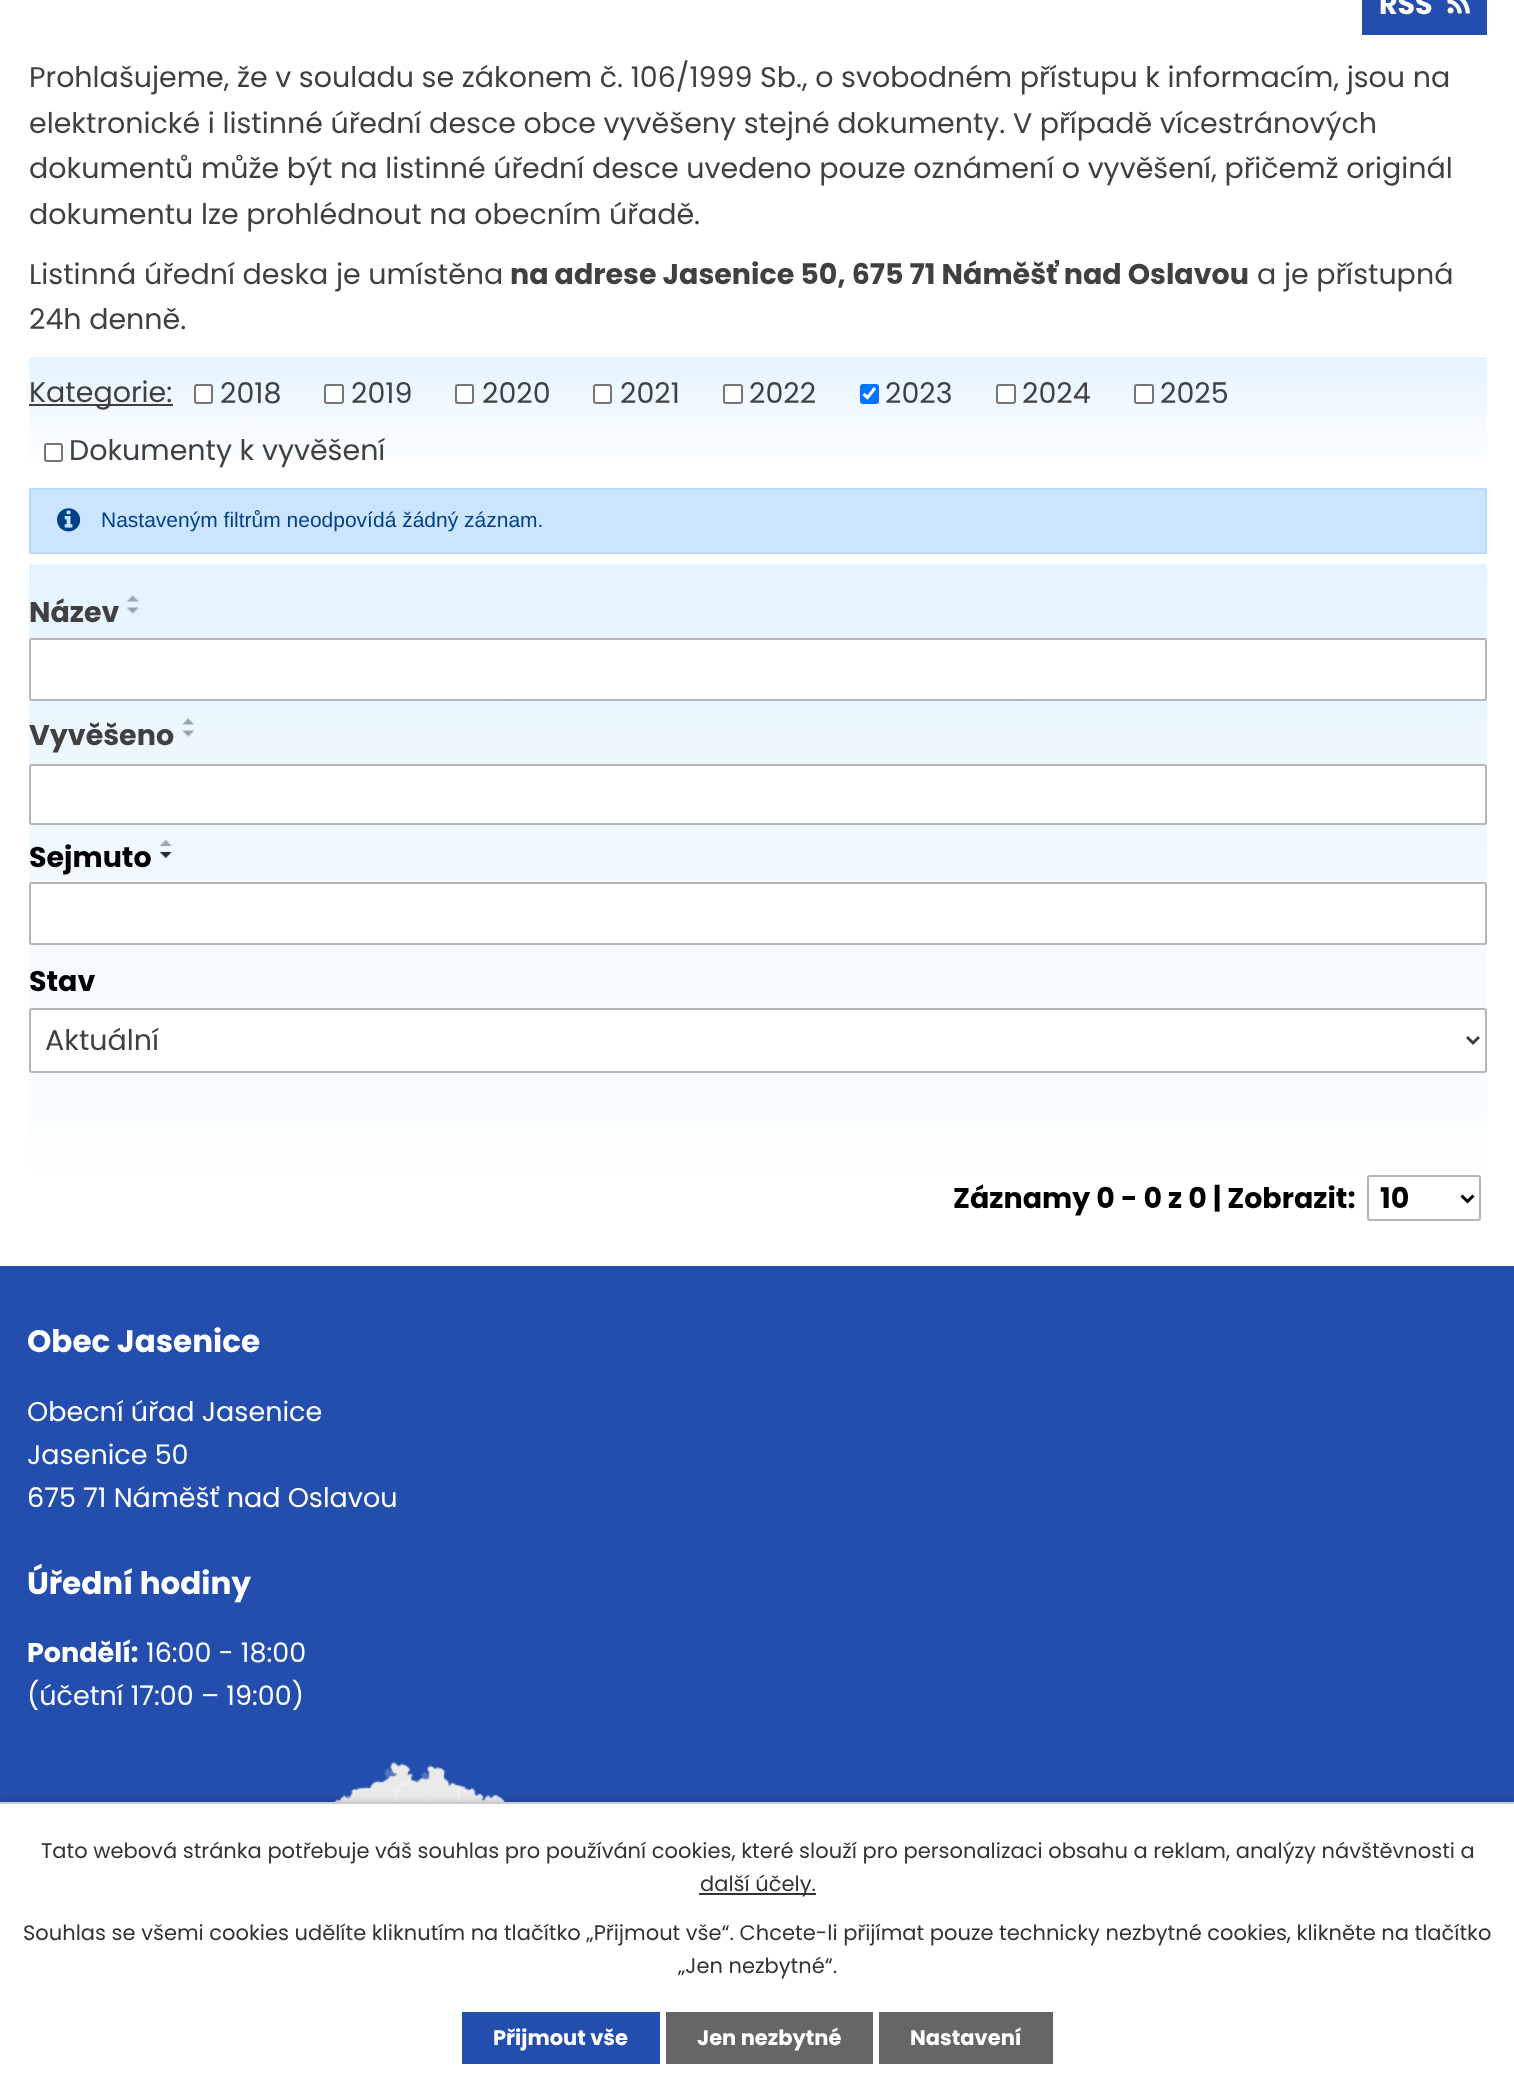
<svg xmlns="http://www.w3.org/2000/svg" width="1514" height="2092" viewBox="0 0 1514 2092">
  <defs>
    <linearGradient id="g1" gradientUnits="userSpaceOnUse" x1="758" y1="473" x2="758" y2="357"><stop offset="0" stop-color="#ffffff"/><stop offset="1" stop-color="#e5f4ff"/></linearGradient>
    <linearGradient id="g2" gradientUnits="userSpaceOnUse" x1="758" y1="1236" x2="758" y2="564"><stop offset="0" stop-color="#ffffff"/><stop offset="1" stop-color="#e5f4ff"/></linearGradient>
    <filter id="blur1" x="-50%" y="-200%" width="200%" height="500%"><feGaussianBlur stdDeviation="4"/></filter>
  </defs>
  <rect width="100%" height="100%" fill="#ffffff"/>
  <rect x="1362" y="0" width="125" height="35" fill="#244ead"/>
  <text x="1379" y="14" font-family="Poppins" font-size="28.5" font-weight="bold" fill="#ffffff">RSS</text>
  <image x="1447" y="0" width="23" height="14" href="img1.png"/>
  <text x="29" y="87" font-family="Poppins" font-size="28.5" fill="#404040">Prohlašujeme, že v souladu se zákonem č. 106/1999 Sb., o svobodném přístupu k informacím, jsou na</text>
  <text x="29" y="133" font-family="Poppins" font-size="28.5" fill="#404040">elektronické i listinné úřední desce obce vyvěšeny stejné dokumenty. V případě vícestránových</text>
  <text x="29" y="178" font-family="Poppins" font-size="28.5" fill="#404040">dokumentů může být na listinné úřední desce uvedeno pouze oznámení o vyvěšení, přičemž originál</text>
  <text x="29" y="224" font-family="Poppins" font-size="28.5" fill="#404040">dokumentu lze prohlédnout na obecním úřadě.</text>
  <text x="29" y="284" font-family="Poppins" font-size="28.5" fill="#404040">Listinná úřední deska je umístěna</text>
  <text x="510" y="284" font-family="Poppins" font-size="28.5" font-weight="bold" fill="#404040">na adrese Jasenice 50, 675 71 Náměšť nad Oslavou</text>
  <text x="1257" y="284" font-family="Poppins" font-size="28.5" fill="#404040">a je přístupná</text>
  <text x="29" y="329" font-family="Poppins" font-size="28.5" fill="#404040">24h denně.</text>
  <rect x="29" y="357" width="1458" height="105" fill="url(#g1)"/>
  <rect x="29" y="404" width="144" height="2" fill="#404040"/>
  <text x="29" y="402" font-family="Poppins" font-size="28.5" fill="#404040">Kategorie:</text>
  <rect x="195" y="385" width="17" height="18" rx="2" fill="#ffffff" stroke="#767676" stroke-width="2"/>
  <text x="220" y="403" font-family="Poppins" font-size="28.5" fill="#404040">2018</text>
  <rect x="325" y="385" width="18" height="18" rx="2" fill="#ffffff" stroke="#767676" stroke-width="2"/>
  <text x="351" y="403" font-family="Poppins" font-size="28.5" fill="#404040">2019</text>
  <rect x="456" y="385" width="17" height="18" rx="2" fill="#ffffff" stroke="#767676" stroke-width="2"/>
  <text x="482" y="403" font-family="Poppins" font-size="28.5" fill="#404040">2020</text>
  <rect x="594" y="385" width="17" height="18" rx="2" fill="#ffffff" stroke="#767676" stroke-width="2"/>
  <text x="620" y="403" font-family="Poppins" font-size="28.5" fill="#404040">2021</text>
  <rect x="724" y="385" width="18" height="18" rx="2" fill="#ffffff" stroke="#767676" stroke-width="2"/>
  <text x="749" y="403" font-family="Poppins" font-size="28.5" fill="#404040">2022</text>
  <rect x="860" y="384" width="19" height="20" rx="3" fill="#0075ff"/>
  <path d="M863.5 394L867.5 397.5L875 388" fill="none" stroke="#ffffff" stroke-width="3.1"/>
  <text x="885" y="403" font-family="Poppins" font-size="28.5" fill="#404040">2023</text>
  <rect x="997" y="385" width="18" height="18" rx="2" fill="#ffffff" stroke="#767676" stroke-width="2"/>
  <text x="1022" y="403" font-family="Poppins" font-size="28.5" fill="#404040">2024</text>
  <rect x="1135" y="385" width="18" height="18" rx="2" fill="#ffffff" stroke="#767676" stroke-width="2"/>
  <text x="1160" y="403" font-family="Poppins" font-size="28.5" fill="#404040">2025</text>
  <rect x="45" y="444" width="17" height="17" rx="2" fill="#ffffff" stroke="#767676" stroke-width="2"/>
  <text x="69" y="460" font-family="Poppins" font-size="28.5" fill="#404040">Dokumenty k vyvěšení</text>
  <rect x="30" y="489" width="1456" height="64" fill="#cce5ff" stroke="#b8daff" stroke-width="2"/>
  <image x="57" y="508" width="24" height="24" href="img2.png"/>
  <text x="101" y="527" font-family="Liberation Sans" font-size="21" fill="#004085">Nastaveným filtrům neodpovídá žádný záznam.</text>
  <rect x="29" y="564" width="1458" height="607" fill="url(#g2)"/>
  <text x="29" y="622" font-family="Poppins" font-size="28.5" font-weight="bold" fill="#404040">Název</text>
  <image x="127" y="595" width="12" height="7" href="img3.png"/>
  <image x="127" y="607" width="12" height="7" href="img4.png"/>
  <text x="29" y="745" font-family="Poppins" font-size="28.5" font-weight="bold" fill="#404040">Vyvěšeno</text>
  <image x="182" y="718" width="12" height="7" href="img5.png"/>
  <image x="182" y="730" width="12" height="7" href="img6.png"/>
  <text x="29" y="867" font-family="Poppins" font-size="28.5" font-weight="bold" fill="#000000">Sejmuto</text>
  <image x="160" y="840" width="12" height="6" href="img7.png"/>
  <image x="160" y="852" width="12" height="6" href="img8.png"/>
  <text x="29" y="991" font-family="Poppins" font-size="28.5" font-weight="bold" fill="#000000">Stav</text>
  <rect x="30" y="639" width="1456" height="61" rx="2" fill="#ffffff" stroke="#b5b5b5" stroke-width="2"/>
  <rect x="30" y="765" width="1456" height="59" rx="2" fill="#ffffff" stroke="#b5b5b5" stroke-width="2"/>
  <rect x="30" y="883" width="1456" height="61" rx="2" fill="#ffffff" stroke="#b5b5b5" stroke-width="2"/>
  <rect x="30" y="1009" width="1456" height="63" rx="2" fill="#ffffff" stroke="#b5b5b5" stroke-width="2"/>
  <path d="M1467 1037L1473 1043L1479 1037" fill="none" stroke="#404040" stroke-width="3"/>
  <text x="45" y="1050" font-family="Poppins" font-size="28.5" fill="#404040">Aktuální</text>
  <text x="953" y="1208" font-family="Poppins" font-size="28.5" font-weight="bold" fill="#000000">Záznamy 0 - 0 z 0 | Zobrazit:</text>
  <rect x="1368" y="1176" width="112" height="44" rx="2" fill="none" stroke="#b5b5b5" stroke-width="2"/>
  <path d="M1461.5 1195.5L1467.5 1201.5L1473.5 1195.5" fill="none" stroke="#000000" stroke-width="3"/>
  <text x="1380" y="1208" font-family="Poppins" font-size="28.5" font-weight="bold" fill="#000000">10</text>
  <rect x="0" y="1266" width="1514" height="536" fill="#244ead"/>
  <text x="27" y="1352" font-family="Poppins" font-size="31" font-weight="bold" fill="#ffffff">Obec Jasenice</text>
  <text x="27" y="1421" font-family="Poppins" font-size="27" fill="#ffffff">Obecní úřad Jasenice</text>
  <text x="27" y="1464" font-family="Poppins" font-size="27" fill="#ffffff">Jasenice 50</text>
  <text x="27" y="1507" font-family="Poppins" font-size="27" fill="#ffffff">675 71 Náměšť nad Oslavou</text>
  <text x="27" y="1594" font-family="Poppins" font-size="31" font-weight="bold" fill="#ffffff">Úřední hodiny</text>
  <text x="27" y="1662" font-family="Poppins" font-size="27" font-weight="bold" fill="#ffffff">Pondělí:</text>
  <text x="146" y="1662" font-family="Poppins" font-size="27" fill="#ffffff">16:00 - 18:00</text>
  <text x="27" y="1705" font-family="Poppins" font-size="27" fill="#ffffff">(účetní 17:00 – 19:00)</text>
  <image x="334" y="1762" width="172" height="40" href="img9.png"/>
  <rect x="0" y="1802" width="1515" height="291" fill="#000000" fill-opacity="0.2" filter="url(#blur1)"/>
  <rect x="0" y="1804" width="1514" height="288" fill="#ffffff"/>
  <rect x="0" y="1802" width="1514" height="2" fill="#cccccc"/>
  <text x="41" y="1858" font-family="Poppins" font-size="21" fill="#333333">Tato webová stránka potřebuje váš souhlas pro používání cookies, které slouží pro personalizaci obsahu a reklam, analýzy návštěvnosti a</text>
  <rect x="699" y="1893" width="117" height="2" fill="#333333"/>
  <text x="700" y="1891" font-family="Poppins" font-size="21" fill="#333333">další účely.</text>
  <text x="23" y="1940" font-family="Poppins" font-size="21" fill="#333333">Souhlas se všemi cookies udělíte kliknutím na tlačítko „Přijmout vše“. Chcete-li přijímat pouze technicky nezbytné cookies, klikněte na tlačítko</text>
  <text x="678" y="1973" font-family="Poppins" font-size="21" fill="#333333">„Jen nezbytné“.</text>
  <rect x="462" y="2012" width="198" height="52" fill="#244ead"/>
  <text x="493" y="2045" font-family="Poppins" font-size="21" font-weight="bold" fill="#ffffff">Přijmout vše</text>
  <rect x="666" y="2012" width="207" height="52" fill="#666666"/>
  <text x="697" y="2045" font-family="Poppins" font-size="21" font-weight="bold" fill="#ffffff">Jen nezbytné</text>
  <rect x="879" y="2012" width="174" height="52" fill="#666666"/>
  <text x="910" y="2045" font-family="Poppins" font-size="21" font-weight="bold" fill="#ffffff">Nastavení</text>
</svg>
